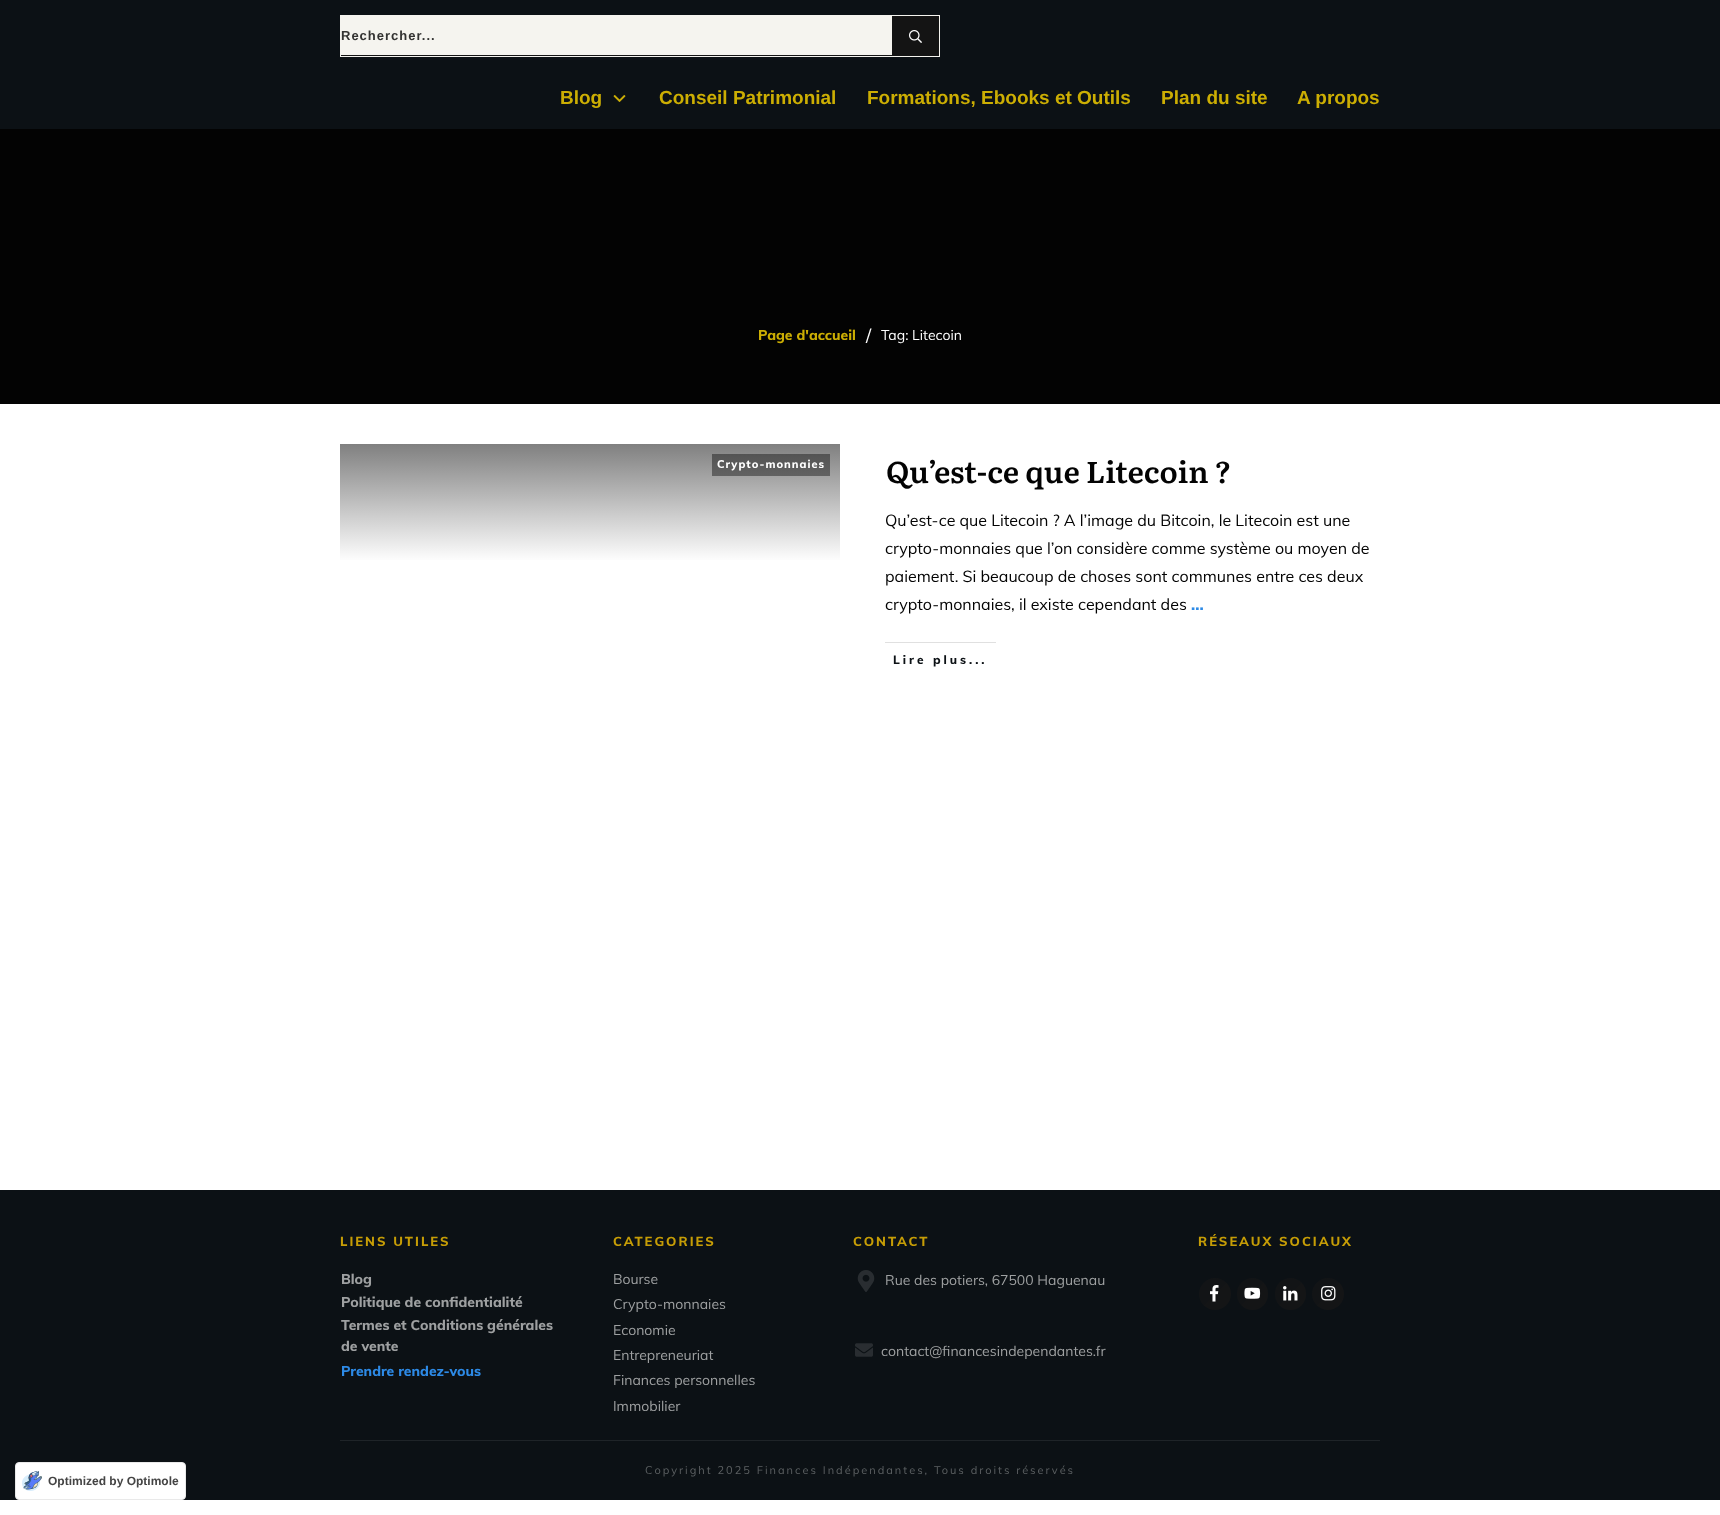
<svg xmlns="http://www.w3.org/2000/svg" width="1720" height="1515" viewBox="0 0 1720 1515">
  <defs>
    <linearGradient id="g1" gradientUnits="userSpaceOnUse" x1="590" y1="444" x2="590" y2="739"><stop offset="0" stop-color="#808080"/><stop offset="0.4" stop-color="#ffffff"/></linearGradient>
    <linearGradient id="g2" gradientUnits="userSpaceOnUse" x1="590" y1="444" x2="590" y2="739"><stop offset="0" stop-color="#4d4d4d"/><stop offset="0.4" stop-color="#999999"/></linearGradient>
    <linearGradient id="g3" gradientUnits="userSpaceOnUse" x1="1199" y1="1278" x2="1231" y2="1310"><stop offset="0.5" stop-color="#121416"/><stop offset="0.5" stop-color="#141516"/></linearGradient>
    <linearGradient id="g4" gradientUnits="userSpaceOnUse" x1="1237" y1="1279" x2="1268" y2="1309"><stop offset="0.5" stop-color="#121416"/><stop offset="0.5" stop-color="#141516"/></linearGradient>
    <linearGradient id="g5" gradientUnits="userSpaceOnUse" x1="1275" y1="1279" x2="1306" y2="1309"><stop offset="0.5" stop-color="#121416"/><stop offset="0.5" stop-color="#141516"/></linearGradient>
    <linearGradient id="g6" gradientUnits="userSpaceOnUse" x1="1312" y1="1278" x2="1344" y2="1310"><stop offset="0.5" stop-color="#121416"/><stop offset="0.5" stop-color="#141516"/></linearGradient>
  </defs>
  <rect width="100%" height="100%" fill="#ffffff"/>
  <rect x="0" y="0" width="1720" height="129" fill="#0c1115"/>
  <rect x="340" y="15" width="600" height="42" fill="#f5f4ef"/>
  <rect x="341" y="55" width="551" height="1" fill="#141414"/>
  <text x="341" y="40" font-family="Liberation Sans" font-size="13" font-weight="bold" letter-spacing="1" fill="#333332">Rechercher...</text>
  <rect x="892" y="16" width="47" height="40" fill="#141414"/>
  <image x="909" y="30" width="13" height="13" href="img1.png"/>
  <text x="560" y="104" font-family="Liberation Sans" font-size="19" font-weight="bold" fill="#ccae03">Blog</text>
  <image x="613" y="95" width="13" height="7" href="img2.png"/>
  <text x="659" y="104" font-family="Liberation Sans" font-size="19" font-weight="bold" fill="#ccae03">Conseil Patrimonial</text>
  <text x="867" y="104" font-family="Liberation Sans" font-size="19" font-weight="bold" fill="#ccae03">Formations, Ebooks et Outils</text>
  <text x="1161" y="104" font-family="Liberation Sans" font-size="19" font-weight="bold" fill="#ccae03">Plan du site</text>
  <text x="1297" y="104" font-family="Liberation Sans" font-size="19" font-weight="bold" fill="#ccae03">A propos</text>
  <rect x="0" y="129" width="1720" height="275" fill="#030303"/>
  <text x="758" y="340" font-family="Muli" font-size="14" font-weight="800" fill="#ccae03">Page d'accueil</text>
  <text x="866" y="342" font-family="Muli" font-size="18" fill="#ffffff">/</text>
  <text x="881" y="340" font-family="Muli" font-size="14" fill="#ffffff">Tag: Litecoin</text>
  <rect x="340" y="444" width="500" height="116" fill="url(#g1)"/>
  <rect x="712" y="454" width="118" height="22" fill="url(#g2)"/>
  <text x="717" y="468" font-family="Muli" font-size="11" font-weight="800" letter-spacing="1" fill="#ffffff">Crypto-monnaies</text>
  <text x="886" y="483" font-family="Literata" font-size="30" font-weight="600" fill="#030303">Qu’est-ce que Litecoin ?</text>
  <text x="885" y="526" font-family="Muli" font-size="16" fill="#030303">Qu’est-ce que Litecoin ? A l’image du Bitcoin, le Litecoin est une</text>
  <text x="885" y="554" font-family="Muli" font-size="16" fill="#030303">crypto-monnaies que l’on considère comme système ou moyen de</text>
  <text x="885" y="582" font-family="Muli" font-size="16" fill="#030303">paiement. Si beaucoup de choses sont communes entre ces deux</text>
  <text x="885" y="610" font-family="Muli" font-size="16" fill="#030303">crypto-monnaies, il existe cependant des</text>
  <text x="1191" y="610" font-family="Muli" font-size="16" font-weight="800" fill="#2d8ae6">...</text>
  <rect x="885" y="642" width="111" height="1" fill="#e0e0e0"/>
  <text x="893" y="664" font-family="Muli" font-size="12" font-weight="800" letter-spacing="3" fill="#0c1115">Lire plus...</text>
  <rect x="0" y="1190" width="1720" height="310" fill="#0c1115"/>
  <rect x="340" y="1440" width="1040" height="1" fill="#1f2428"/>
  <text x="340" y="1246" font-family="Muli" font-size="13" font-weight="800" letter-spacing="2" fill="#c69d06">LIENS UTILES</text>
  <text x="341" y="1284" font-family="Muli" font-size="14" font-weight="800" fill="#9ea0a1">Blog</text>
  <text x="341" y="1307" font-family="Muli" font-size="14" font-weight="800" fill="#9ea0a1">Politique de confidentialité</text>
  <text x="341" y="1330" font-family="Muli" font-size="14" font-weight="800" fill="#9ea0a1">Termes et Conditions générales</text>
  <text x="341" y="1351" font-family="Muli" font-size="14" font-weight="800" fill="#9ea0a1">de vente</text>
  <text x="341" y="1376" font-family="Muli" font-size="14" font-weight="800" fill="#2d8ae6">Prendre rendez-vous</text>
  <text x="613" y="1246" font-family="Muli" font-size="13" font-weight="800" letter-spacing="2" fill="#c69d06">CATEGORIES</text>
  <text x="613" y="1284" font-family="Muli" font-size="14" fill="#9ea0a1">Bourse</text>
  <text x="613" y="1309" font-family="Muli" font-size="14" fill="#9ea0a1">Crypto-monnaies</text>
  <text x="613" y="1335" font-family="Muli" font-size="14" fill="#9ea0a1">Economie</text>
  <text x="613" y="1360" font-family="Muli" font-size="14" fill="#9ea0a1">Entrepreneuriat</text>
  <text x="613" y="1385" font-family="Muli" font-size="14" fill="#9ea0a1">Finances personnelles</text>
  <text x="613" y="1411" font-family="Muli" font-size="14" fill="#9ea0a1">Immobilier</text>
  <text x="853" y="1246" font-family="Muli" font-size="13" font-weight="800" letter-spacing="2" fill="#c69d06">CONTACT</text>
  <image x="857" y="1270" width="18" height="22" href="img3.png"/>
  <text x="885" y="1285" font-family="Muli" font-size="14" fill="#9ea0a1">Rue des potiers, 67500 Haguenau</text>
  <image x="855" y="1343" width="18" height="14" href="img4.png"/>
  <text x="881" y="1356" font-family="Muli" font-size="14" fill="#9ea0a1">contact@financesindependantes.fr</text>
  <text x="1198" y="1246" font-family="Muli" font-size="13" font-weight="800" letter-spacing="2" fill="#c69d06">RÉSEAUX SOCIAUX</text>
  <circle cx="1215" cy="1294" r="16" fill="url(#g3)"/>
  <image x="1210" y="1285" width="9" height="17" href="img5.png"/>
  <rect x="1237" y="1278" width="31" height="32" rx="15.5" fill="url(#g4)"/>
  <image x="1244" y="1287" width="17" height="12" href="img6.png"/>
  <rect x="1275" y="1278" width="31" height="32" rx="15.5" fill="url(#g5)"/>
  <image x="1283" y="1286" width="15" height="15" href="img7.png"/>
  <circle cx="1328" cy="1294" r="16" fill="url(#g6)"/>
  <image x="1321" y="1286" width="15" height="15" href="img8.png"/>
  <text x="645" y="1474" font-family="Muli" font-size="11" letter-spacing="2" fill="#5c6062">Copyright 2025 Finances Indépendantes, Tous droits réservés</text>
  <rect x="15.5" y="1462.5" width="170" height="37" rx="3.5" fill="#ffffff" stroke="#e9e9e9"/>
  <image x="22" y="1471" width="20" height="20" href="img9.png"/>
  <text x="48" y="1485" font-family="Liberation Sans" font-size="12" font-weight="bold" fill="#444444">Optimized by Optimole</text>
</svg>
